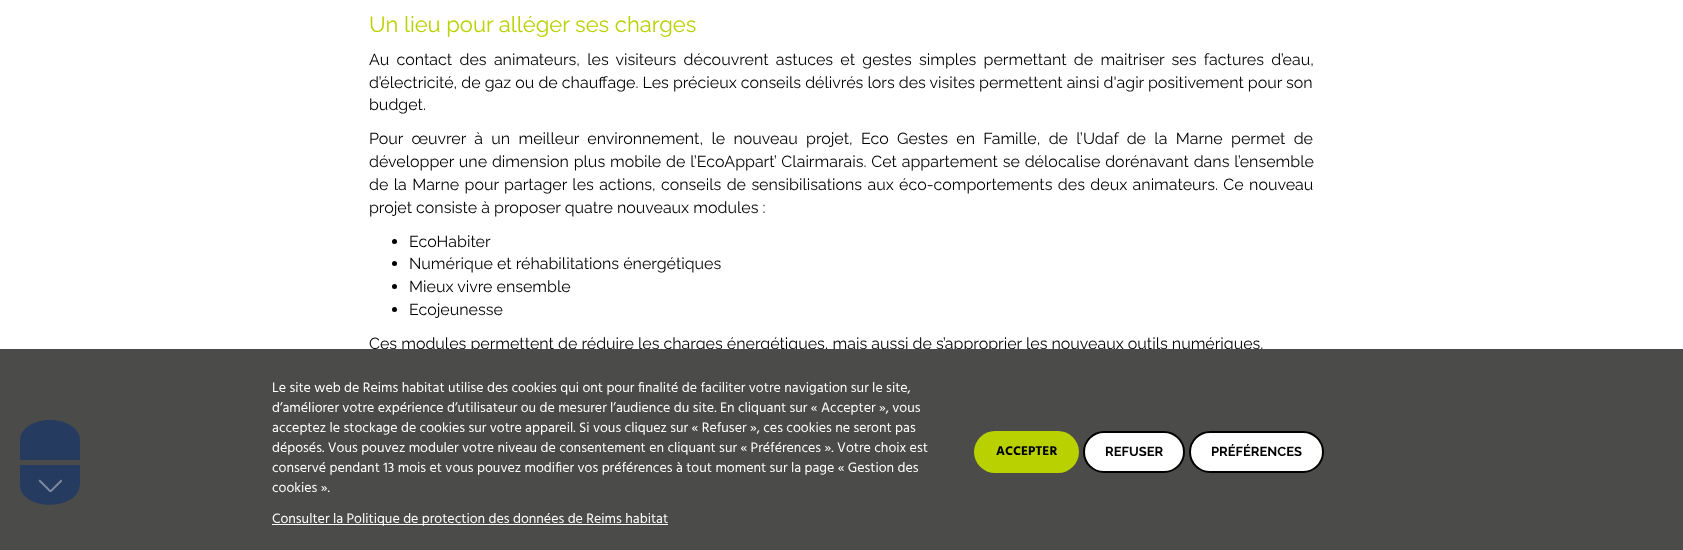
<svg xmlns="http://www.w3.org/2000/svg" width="1683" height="550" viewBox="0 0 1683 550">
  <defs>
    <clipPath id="clip1"><rect x="20" y="465" width="60" height="40"/></clipPath>
  </defs>
  <rect width="100%" height="100%" fill="#ffffff"/>
  <text x="369" y="32" font-family="Raleway" font-size="22" font-weight="100" fill="#bad100">Un lieu pour alléger ses charges</text>
  <text x="369" y="65" word-spacing="3.25" font-family="Raleway" font-size="16" font-weight="100" fill="#000000">Au contact des animateurs, les visiteurs découvrent astuces et gestes simples permettant de maitriser ses factures d’eau,</text>
  <text x="369" y="88" font-family="Raleway" font-size="16" font-weight="100" fill="#000000">d’électricité, de gaz ou de chauffage. Les précieux conseils délivrés lors des visites permettent ainsi d'agir positivement pour son</text>
  <text x="369" y="110" font-family="Raleway" font-size="16" font-weight="100" fill="#000000">budget.</text>
  <text x="369" y="144" word-spacing="4.25" font-family="Raleway" font-size="16" font-weight="100" fill="#000000">Pour œuvrer à un meilleur environnement, le nouveau projet, Eco Gestes en Famille, de l’Udaf de la Marne permet de</text>
  <text x="369" y="167" word-spacing="0.75" font-family="Raleway" font-size="16" font-weight="100" fill="#000000">développer une dimension plus mobile de l’EcoAppart’ Clairmarais. Cet appartement se délocalise dorénavant dans l’ensemble</text>
  <text x="369" y="190" word-spacing="1.3" font-family="Raleway" font-size="16" font-weight="100" fill="#000000">de la Marne pour partager les actions, conseils de sensibilisations aux éco-comportements des deux animateurs. Ce nouveau</text>
  <text x="369" y="213" font-family="Raleway" font-size="16" font-weight="100" fill="#000000">projet consiste à proposer quatre nouveaux modules :</text>
  <circle cx="394.5" cy="241.5" r="2.5" fill="#000000"/>
  <text x="409" y="247" font-family="Raleway" font-size="16" font-weight="100" fill="#000000">EcoHabiter</text>
  <circle cx="394.5" cy="263.5" r="2.5" fill="#000000"/>
  <text x="409" y="269" font-family="Raleway" font-size="16" font-weight="100" fill="#000000">Numérique et réhabilitations énergétiques</text>
  <circle cx="394.5" cy="286.5" r="2.5" fill="#000000"/>
  <text x="409" y="292" font-family="Raleway" font-size="16" font-weight="100" fill="#000000">Mieux vivre ensemble</text>
  <circle cx="394.5" cy="309.5" r="2.5" fill="#000000"/>
  <text x="409" y="315" font-family="Raleway" font-size="16" font-weight="100" fill="#000000">Ecojeunesse</text>
  <text x="369" y="349" font-family="Raleway" font-size="16" font-weight="100" fill="#000000">Ces modules permettent de réduire les charges énergétiques, mais aussi de s’approprier les nouveaux outils numériques.</text>
  <rect x="0" y="349" width="1683" height="201" fill="#4b4b49"/>
  <path d="M50 420C67 420 80 429 80 440V460H20V440C20 429 33 420 50 420Z" fill="#263b60"/>
  <text x="272" y="392" font-family="Hind" font-size="14" fill="#ffffff">Le site web de Reims habitat utilise des cookies qui ont pour finalité de faciliter votre navigation sur le site,</text>
  <text x="272" y="412" font-family="Hind" font-size="14" fill="#ffffff">d’améliorer votre expérience d’utilisateur ou de mesurer l’audience du site. En cliquant sur « Accepter », vous</text>
  <text x="272" y="432" font-family="Hind" font-size="14" fill="#ffffff">acceptez le stockage de cookies sur votre appareil. Si vous cliquez sur « Refuser », ces cookies ne seront pas</text>
  <text x="272" y="452" font-family="Hind" font-size="14" fill="#ffffff">déposés. Vous pouvez moduler votre niveau de consentement en cliquant sur « Préférences ». Votre choix est</text>
  <text x="272" y="472" font-family="Hind" font-size="14" fill="#ffffff">conservé pendant 13 mois et vous pouvez modifier vos préférences à tout moment sur la page « Gestion des</text>
  <text x="272" y="492" font-family="Hind" font-size="14" fill="#ffffff">cookies ».</text>
  <rect x="272" y="524" width="396" height="1" fill="#ffffff"/>
  <text x="272" y="523" font-family="Hind" font-size="14" fill="#ffffff">Consulter la Politique de protection des données de Reims habitat</text>
  <rect x="974" y="431" width="105" height="42" rx="21" fill="#bad100"/>
  <text x="996" y="455" font-family="Hind" font-size="13" font-weight="bold" fill="#000000">ACCEPTER</text>
  <rect x="1084" y="432" width="100" height="40" rx="20" fill="#ffffff" stroke="#000000" stroke-width="2"/>
  <text x="1105" y="456" font-family="'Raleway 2'" font-size="13" font-weight="100" fill="#000000">REFUSER</text>
  <rect x="1190" y="432" width="133" height="40" rx="20" fill="#ffffff" stroke="#000000" stroke-width="2"/>
  <text x="1211" y="456" font-family="'Raleway 2'" font-size="13" font-weight="100" fill="#000000">PRÉFÉRENCES</text>
  <g clip-path="url(#clip1)">
    <path d="M20 465H80C80 471 81 483 79 489C72 512 20 509 20 485Z" fill="#263b60"/>
  </g>
  <image x="38" y="479" width="24" height="13" href="img1.png"/>
</svg>
